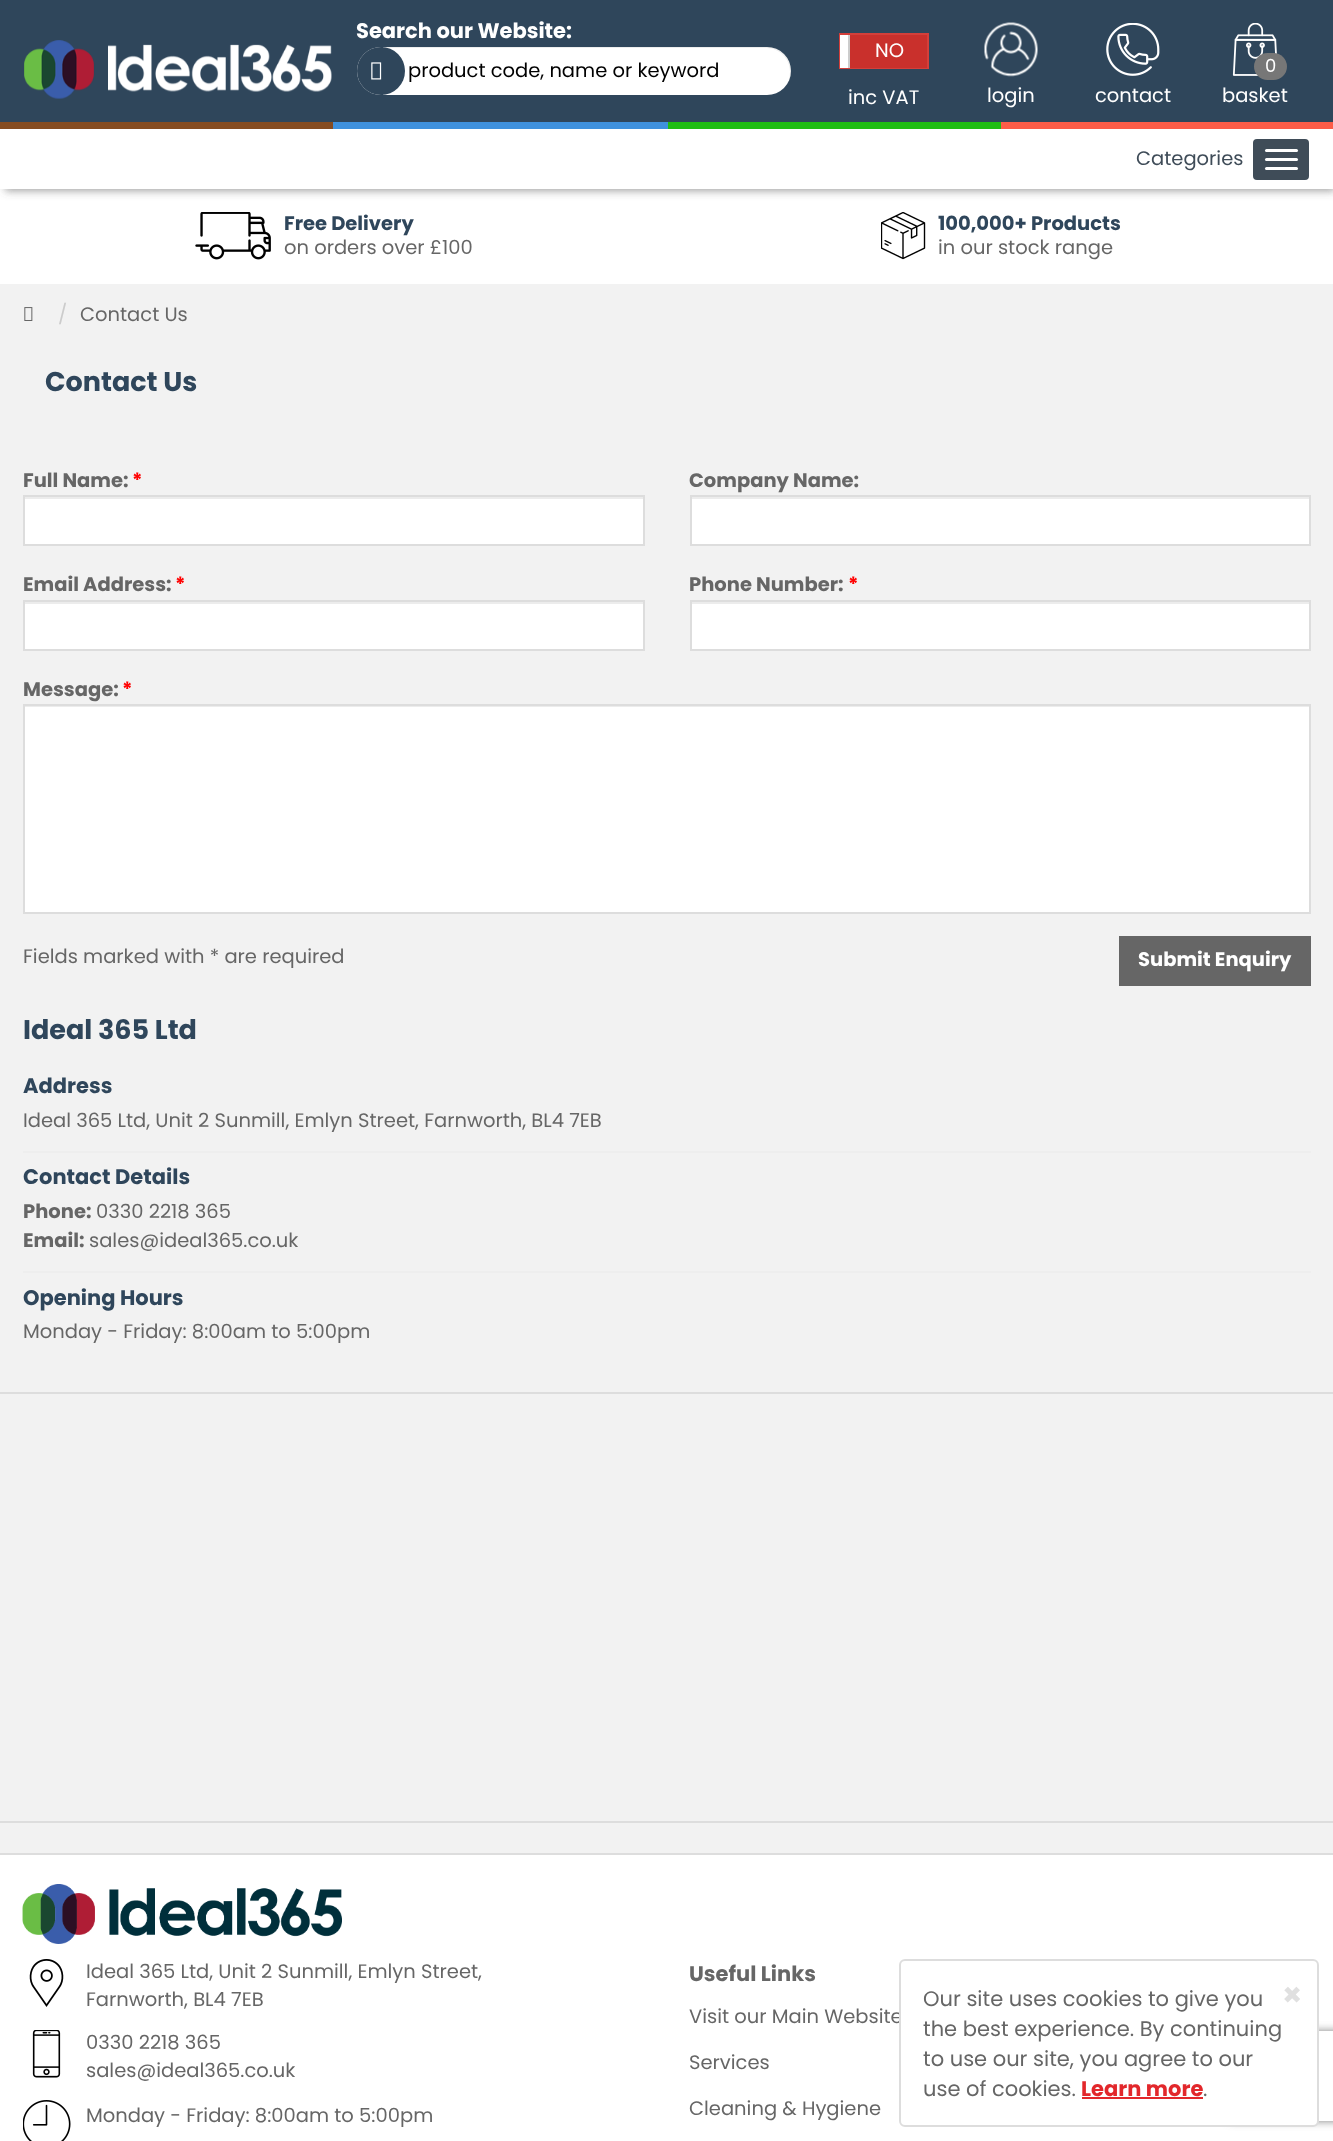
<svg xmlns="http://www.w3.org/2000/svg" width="1333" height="2141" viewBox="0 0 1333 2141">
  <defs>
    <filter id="blur1" x="-50%" y="-200%" width="200%" height="500%"><feGaussianBlur stdDeviation="4"/></filter>
    <clipPath id="clip1"><path d="M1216 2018H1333V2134H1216ZM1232 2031H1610C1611.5 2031 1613 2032.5 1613 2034V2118C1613 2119.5 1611.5 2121 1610 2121H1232C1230.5 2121 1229 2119.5 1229 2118V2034C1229 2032.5 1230.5 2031 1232 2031Z" clip-rule="evenodd"/></clipPath>
  </defs>
  <rect width="100%" height="100%" fill="#f2f2f2"/>
  <rect x="0" y="189" width="1333" height="95" fill="#ffffff"/>
  <rect x="5" y="134" width="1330" height="57" fill="#555555" fill-opacity="0.55" filter="url(#blur1)"/>
  <rect x="0" y="0" width="1333" height="122" fill="#2f465b"/>
  <image x="24" y="40" width="308" height="59" href="img1.png"/>
  <text x="356" y="38" font-family="Poppins" font-size="21" font-weight="bold" fill="#ffffff">Search our Website:</text>
  <rect x="357" y="47" width="434" height="48" rx="24" fill="#ffffff"/>
  <path d="M381 48H766C780 48 790 59 790 72C790 78 788 83 785 87C789 83 791 77 791 71C791 58 780 47 767 47H381C368 47 357 58 357 71V72C357 59 368 48 381 48Z" fill="#000000" fill-opacity="0.07"/>
  <circle cx="381" cy="71" r="24" fill="#2f465b"/>
  <image x="371" y="62" width="11" height="18" href="img2.png"/>
  <text x="408" y="77" font-family="Poppins" font-size="19.5" fill="#000000">product code, name or keyword</text>
  <rect x="840" y="34" width="88" height="34" fill="none" stroke="#d43f3a" stroke-width="2"/>
  <rect x="840" y="35" width="8" height="33" fill="#ffffff"/>
  <rect x="848" y="35" width="2" height="33" fill="#cccccc"/>
  <rect x="850" y="35" width="77" height="33" fill="#c9302c"/>
  <text x="875" y="57" font-family="Poppins" font-size="19.5" fill="#ffffff">NO</text>
  <text x="848" y="104" font-family="Poppins" font-size="19.5" fill="#ffffff">inc VAT</text>
  <image x="984" y="22" width="54" height="55" href="img3.png"/>
  <text x="987" y="102" font-family="Poppins" font-size="19.5" fill="#ffffff">login</text>
  <image x="1106" y="23" width="54" height="53" href="img4.png"/>
  <text x="1095" y="102" font-family="Poppins" font-size="19.5" fill="#ffffff">contact</text>
  <image x="1232" y="23" width="45" height="53" href="img5.png"/>
  <rect x="1254" y="53" width="33" height="27" rx="13.5" fill="#777777"/>
  <text x="1265" y="72" font-family="Poppins" font-size="18" fill="#ffffff">0</text>
  <text x="1222" y="102" font-family="Poppins" font-size="19.5" fill="#ffffff">basket</text>
  <rect x="0" y="122" width="333" height="7" fill="#864c21"/>
  <rect x="333" y="122" width="335" height="7" fill="#3f91dd"/>
  <rect x="668" y="122" width="333" height="7" fill="#1fbd13"/>
  <rect x="1001" y="122" width="332" height="7" fill="#fd5c48"/>
  <rect x="0" y="129" width="1333" height="60" fill="#ffffff"/>
  <text x="1136" y="165" font-family="Poppins" font-size="19.5" fill="#3f4c58">Categories</text>
  <rect x="1252" y="138" width="58" height="43" rx="5" fill="#3f4c58" stroke="#ffffff" stroke-width="2"/>
  <rect x="1265" y="149" width="33" height="3" rx="1.5" fill="#ffffff"/>
  <rect x="1265" y="158" width="33" height="3" rx="1.5" fill="#ffffff"/>
  <rect x="1265" y="167" width="33" height="3" rx="1.5" fill="#ffffff"/>
  <image x="195" y="212" width="76" height="48" href="img6.png"/>
  <text x="284" y="230" font-family="Poppins" font-size="19.5" font-weight="bold" fill="#2f465b">Free Delivery</text>
  <text x="284" y="254" font-family="Poppins" font-size="19.5" fill="#666666">on orders over £100</text>
  <image x="881" y="212" width="45" height="48" href="img7.png"/>
  <text x="938" y="230" font-family="Poppins" font-size="19.5" font-weight="bold" fill="#2f465b">100,000+ Products</text>
  <text x="938" y="254" font-family="Poppins" font-size="19.5" fill="#666666">in our stock range</text>
  <image x="24" y="307" width="9" height="14" href="img8.png"/>
  <text x="58" y="321" font-family="Poppins" font-size="19.5" fill="#cccccc">/</text>
  <text x="80" y="321" font-family="Poppins" font-size="19.5" fill="#666666">Contact Us</text>
  <text x="45" y="391" font-family="Poppins" font-size="27" font-weight="bold" fill="#2f465b">Contact Us</text>
  <text x="23" y="487" font-family="Poppins" font-size="19.5" font-weight="bold" fill="#666666">Full Name:</text>
  <text x="132" y="487" font-family="Poppins" font-size="19.5" font-weight="bold" fill="#ff0000">*</text>
  <rect x="25" y="499" width="618" height="45" fill="#ffffff"/>
  <rect x="24" y="497" width="620" height="2" fill="#ececec"/>
  <rect x="24" y="496" width="620" height="49" fill="none" stroke="#dddddd" stroke-width="2"/>
  <text x="689" y="487" font-family="Poppins" font-size="19.5" font-weight="bold" fill="#666666">Company Name:</text>
  <rect x="692" y="499" width="617" height="45" fill="#ffffff"/>
  <rect x="692" y="497" width="618" height="2" fill="#ececec"/>
  <rect x="691" y="496" width="619" height="49" fill="none" stroke="#dddddd" stroke-width="2"/>
  <text x="23" y="591" font-family="Poppins" font-size="19.5" font-weight="bold" fill="#666666">Email Address:</text>
  <text x="175" y="591" font-family="Poppins" font-size="19.5" font-weight="bold" fill="#ff0000">*</text>
  <rect x="25" y="604" width="618" height="45" fill="#ffffff"/>
  <rect x="24" y="602" width="620" height="2" fill="#ececec"/>
  <rect x="24" y="601" width="620" height="49" fill="none" stroke="#dddddd" stroke-width="2"/>
  <text x="689" y="591" font-family="Poppins" font-size="19.5" font-weight="bold" fill="#666666">Phone Number:</text>
  <text x="848" y="591" font-family="Poppins" font-size="19.5" font-weight="bold" fill="#ff0000">*</text>
  <rect x="692" y="604" width="617" height="45" fill="#ffffff"/>
  <rect x="692" y="602" width="618" height="2" fill="#ececec"/>
  <rect x="691" y="601" width="619" height="49" fill="none" stroke="#dddddd" stroke-width="2"/>
  <text x="23" y="696" font-family="Poppins" font-size="19.5" font-weight="bold" fill="#666666">Message:</text>
  <text x="122" y="696" font-family="Poppins" font-size="19.5" font-weight="bold" fill="#ff0000">*</text>
  <rect x="25" y="707" width="1284" height="205" fill="#ffffff"/>
  <rect x="24" y="706" width="1286" height="1" fill="#ececec"/>
  <rect x="24" y="705" width="1286" height="208" fill="none" stroke="#dddddd" stroke-width="2"/>
  <text x="23" y="963" font-family="Poppins" font-size="19.5" fill="#666666">Fields marked with * are required</text>
  <rect x="1119" y="936" width="192" height="50" fill="#666666"/>
  <text x="1138" y="966" font-family="Poppins" font-size="19.5" font-weight="bold" fill="#ffffff">Submit Enquiry</text>
  <text x="23" y="1039" font-family="Poppins" font-size="27" font-weight="bold" fill="#2f465b">Ideal 365 Ltd</text>
  <text x="23" y="1093" font-family="Poppins" font-size="21" font-weight="bold" fill="#2f465b">Address</text>
  <text x="23" y="1127" font-family="Poppins" font-size="19.5" fill="#666666">Ideal 365 Ltd, Unit 2 Sunmill, Emlyn Street, Farnworth, BL4 7EB</text>
  <rect x="23" y="1151" width="1288" height="2" fill="#eeeeee"/>
  <text x="23" y="1184" font-family="Poppins" font-size="21" font-weight="bold" fill="#2f465b">Contact Details</text>
  <text x="23" y="1218" font-family="Poppins" font-size="19.5" font-weight="bold" fill="#666666">Phone:</text>
  <text x="96" y="1218" font-family="Poppins" font-size="19.5" fill="#666666">0330 2218 365</text>
  <text x="23" y="1247" font-family="Poppins" font-size="19.5" font-weight="bold" fill="#666666">Email:</text>
  <text x="89" y="1247" font-family="Poppins" font-size="19.5" fill="#666666">sales@ideal365.co.uk</text>
  <rect x="23" y="1271" width="1288" height="2" fill="#eeeeee"/>
  <text x="23" y="1305" font-family="Poppins" font-size="21" font-weight="bold" fill="#2f465b">Opening Hours</text>
  <text x="23" y="1338" font-family="Poppins" font-size="19.5" fill="#666666">Monday - Friday: 8:00am to 5:00pm</text>
  <rect x="0" y="1392" width="1333" height="2" fill="#dddddd"/>
  <rect x="0" y="1821" width="1333" height="2" fill="#dddddd"/>
  <rect x="0" y="1855" width="1333" height="286" fill="#ffffff"/>
  <rect x="0" y="1853" width="1333" height="2" fill="#dddddd"/>
  <image x="22" y="1884" width="320" height="60" href="img9.png"/>
  <image x="29" y="1959" width="35" height="48" href="img10.png"/>
  <text x="86" y="1978" font-family="Poppins" font-size="19.5" fill="#666666">Ideal 365 Ltd, Unit 2 Sunmill, Emlyn Street,</text>
  <text x="86" y="2006" font-family="Poppins" font-size="19.5" fill="#666666">Farnworth, BL4 7EB</text>
  <image x="32" y="2030" width="29" height="48" href="img11.png"/>
  <text x="86" y="2049" font-family="Poppins" font-size="19.5" fill="#666666">0330 2218 365</text>
  <text x="86" y="2077" font-family="Poppins" font-size="19.5" fill="#666666">sales@ideal365.co.uk</text>
  <image x="23" y="2100" width="48" height="41" href="img12.png"/>
  <text x="86" y="2122" font-family="Poppins" font-size="19.5" fill="#666666">Monday - Friday: 8:00am to 5:00pm</text>
  <text x="689" y="1981" font-family="Poppins" font-size="21" font-weight="bold" fill="#666666">Useful Links</text>
  <text x="689" y="2023" font-family="Poppins" font-size="19.5" fill="#666666">Visit our Main Website</text>
  <text x="689" y="2069" font-family="Poppins" font-size="19.5" fill="#666666">Services</text>
  <text x="689" y="2115" font-family="Poppins" font-size="19.5" fill="#666666">Cleaning &amp; Hygiene</text>
  <g clip-path="url(#clip1)">
    <rect x="1229" y="2031" width="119" height="90" rx="3" fill="#808080" filter="url(#blur1)"/>
  </g>
  <rect x="900" y="1960" width="418" height="166" rx="5" fill="#ffffff" stroke="#dddddd" stroke-width="2"/>
  <text x="923" y="2006" font-family="Poppins" font-size="21" fill="#666666">Our site uses cookies to give you</text>
  <text x="1282" y="2006" font-family="Poppins" font-size="32" font-weight="bold" fill="#e0e0e0">×</text>
  <text x="923" y="2036" font-family="Poppins" font-size="21" fill="#666666">the best experience. By continuing</text>
  <text x="923" y="2066" font-family="Poppins" font-size="21" fill="#666666">to use our site, you agree to our</text>
  <text x="923" y="2096" font-family="Poppins" font-size="21" fill="#666666">use of cookies.</text>
  <text x="1081" y="2096" font-family="Poppins" font-size="21" font-weight="bold" fill="#e2272b">Learn more</text>
  <rect x="1082" y="2097" width="121" height="2" fill="#e2272b"/>
  <text x="1203" y="2096" font-family="Poppins" font-size="21" fill="#666666">.</text>
</svg>
